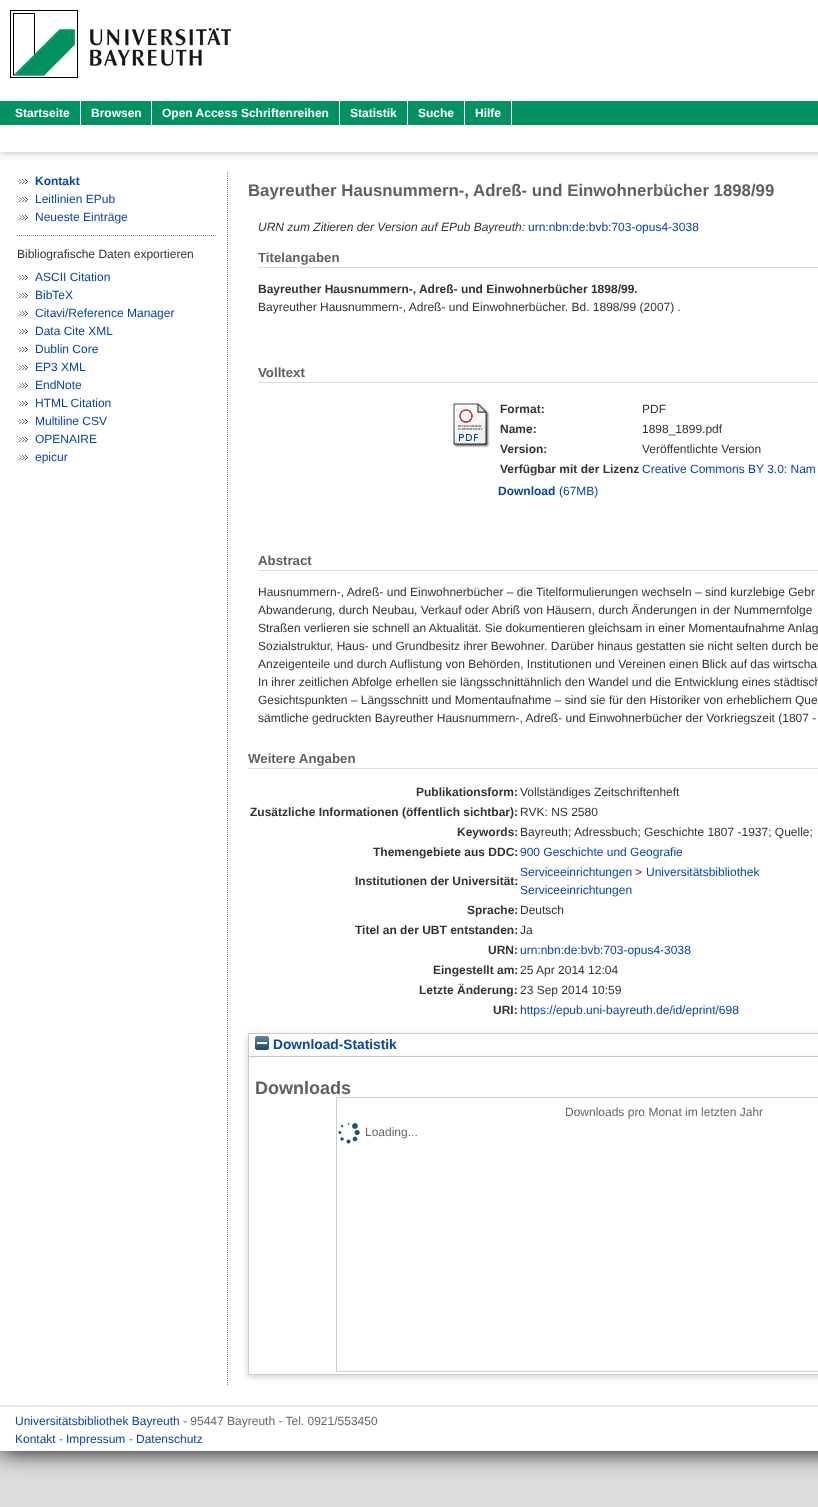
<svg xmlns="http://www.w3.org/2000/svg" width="818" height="1507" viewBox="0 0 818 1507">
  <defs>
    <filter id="blur1" x="-50%" y="-200%" width="200%" height="500%"><feGaussianBlur stdDeviation="12"/></filter>
    <clipPath id="clip1"><path d="M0 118H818V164H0ZM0 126H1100V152H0Z" clip-rule="evenodd"/></clipPath>
    <filter id="blur2" x="-50%" y="-200%" width="200%" height="500%"><feGaussianBlur stdDeviation="3"/></filter>
    <clipPath id="clip2"><path d="M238 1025H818V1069H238ZM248 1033H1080V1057H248Z" clip-rule="evenodd"/></clipPath>
  </defs>
  <rect width="100%" height="100%" fill="#dcdcdc"/>
  <rect x="0" y="0" width="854" height="1451" fill="#000000" filter="url(#blur1)"/>
  <rect x="0" y="0" width="818" height="1451" fill="#ffffff"/>
  <image x="10" y="10" width="221" height="68" href="img1.png"/>
  <rect x="0" y="101" width="818" height="24" fill="#009260"/>
  <g clip-path="url(#clip1)">
    <rect x="0" y="128" width="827" height="26" fill="#646464" fill-opacity="0.3" filter="url(#blur2)"/>
  </g>
  <rect x="5" y="124" width="506" height="1" fill="#009260"/>
  <rect x="5" y="125" width="507" height="1" fill="#ffffff"/>
  <rect x="80" y="101" width="1" height="24" fill="#ffffff"/>
  <text x="15" y="117" font-family="Liberation Sans" font-size="12" font-weight="bold" fill="#ffffff">Startseite</text>
  <rect x="151" y="101" width="1" height="24" fill="#ffffff"/>
  <text x="91" y="117" font-family="Liberation Sans" font-size="12" font-weight="bold" fill="#ffffff">Browsen</text>
  <rect x="339" y="101" width="1" height="24" fill="#ffffff"/>
  <text x="162" y="117" font-family="Liberation Sans" font-size="12" font-weight="bold" fill="#ffffff">Open Access Schriftenreihen</text>
  <rect x="407" y="101" width="1" height="24" fill="#ffffff"/>
  <text x="350" y="117" font-family="Liberation Sans" font-size="12" font-weight="bold" fill="#ffffff">Statistik</text>
  <rect x="464" y="101" width="1" height="24" fill="#ffffff"/>
  <text x="418" y="117" font-family="Liberation Sans" font-size="12" font-weight="bold" fill="#ffffff">Suche</text>
  <rect x="511" y="101" width="1" height="24" fill="#ffffff"/>
  <text x="475" y="117" font-family="Liberation Sans" font-size="12" font-weight="bold" fill="#ffffff">Hilfe</text>
  <image x="17" y="179" width="11" height="6" href="img2.png"/>
  <text x="35" y="185" font-family="Liberation Sans" font-size="12" font-weight="bold" fill="#0645ad">Kontakt</text>
  <image x="17" y="197" width="11" height="6" href="img2.png"/>
  <text x="35" y="203" font-family="Liberation Sans" font-size="12" fill="#0645ad">Leitlinien EPub</text>
  <image x="17" y="215" width="11" height="6" href="img2.png"/>
  <text x="35" y="221" font-family="Liberation Sans" font-size="12" fill="#0645ad">Neueste Einträge</text>
  <path d="M17 235.5H217" fill="none" stroke="#808080" stroke-dasharray="1 1"/>
  <text x="17" y="258" font-family="Liberation Sans" font-size="12" fill="#333333">Bibliografische Daten exportieren</text>
  <image x="17" y="275" width="11" height="6" href="img2.png"/>
  <text x="35" y="281" font-family="Liberation Sans" font-size="12" fill="#0645ad">ASCII Citation</text>
  <image x="17" y="293" width="11" height="6" href="img2.png"/>
  <text x="35" y="299" font-family="Liberation Sans" font-size="12" fill="#0645ad">BibTeX</text>
  <image x="17" y="311" width="11" height="6" href="img2.png"/>
  <text x="35" y="317" font-family="Liberation Sans" font-size="12" fill="#0645ad">Citavi/Reference Manager</text>
  <image x="17" y="329" width="11" height="6" href="img2.png"/>
  <text x="35" y="335" font-family="Liberation Sans" font-size="12" fill="#0645ad">Data Cite XML</text>
  <image x="17" y="347" width="11" height="6" href="img2.png"/>
  <text x="35" y="353" font-family="Liberation Sans" font-size="12" fill="#0645ad">Dublin Core</text>
  <image x="17" y="365" width="11" height="6" href="img2.png"/>
  <text x="35" y="371" font-family="Liberation Sans" font-size="12" fill="#0645ad">EP3 XML</text>
  <image x="17" y="383" width="11" height="6" href="img2.png"/>
  <text x="35" y="389" font-family="Liberation Sans" font-size="12" fill="#0645ad">EndNote</text>
  <image x="17" y="401" width="11" height="6" href="img2.png"/>
  <text x="35" y="407" font-family="Liberation Sans" font-size="12" fill="#0645ad">HTML Citation</text>
  <image x="17" y="419" width="11" height="6" href="img2.png"/>
  <text x="35" y="425" font-family="Liberation Sans" font-size="12" fill="#0645ad">Multiline CSV</text>
  <image x="17" y="437" width="11" height="6" href="img2.png"/>
  <text x="35" y="443" font-family="Liberation Sans" font-size="12" fill="#0645ad">OPENAIRE</text>
  <image x="17" y="455" width="11" height="6" href="img2.png"/>
  <text x="35" y="461" font-family="Liberation Sans" font-size="12" fill="#0645ad">epicur</text>
  <path d="M227.5 172V1385" fill="none" stroke="#808080" stroke-dasharray="1 1"/>
  <text x="248" y="196" font-family="Liberation Sans" font-size="16.8" font-weight="bold" fill="#606060">Bayreuther Hausnummern-, Adreß- und Einwohnerbücher 1898/99</text>
  <text x="258" y="231" font-family="Liberation Sans" font-size="12" font-style="italic" fill="#333333">URN zum Zitieren der Version auf EPub Bayreuth:</text>
  <text x="528" y="231" font-family="Liberation Sans" font-size="12" fill="#0645ad">urn:nbn:de:bvb:703-opus4-3038</text>
  <rect x="258" y="267" width="560" height="1" fill="#d8dbef"/>
  <text x="258" y="262" font-family="Liberation Sans" font-size="13.25" font-weight="bold" fill="#606060">Titelangaben</text>
  <text x="258" y="293" font-family="Liberation Sans" font-size="12" font-weight="bold" fill="#333333">Bayreuther Hausnummern-, Adreß- und Einwohnerbücher 1898/99.</text>
  <text x="258" y="311" font-family="Liberation Sans" font-size="12" fill="#333333">Bayreuther Hausnummern-, Adreß- und Einwohnerbücher. Bd. 1898/99 (2007) .</text>
  <rect x="258" y="382" width="560" height="1" fill="#d8dbef"/>
  <text x="258" y="377" font-family="Liberation Sans" font-size="13.25" font-weight="bold" fill="#606060">Volltext</text>
  <image x="453" y="403" width="37" height="45" href="img3.png"/>
  <text x="500" y="413" font-family="Liberation Sans" font-size="12" font-weight="bold" fill="#333333">Format:</text>
  <text x="642" y="413" font-family="Liberation Sans" font-size="12" fill="#333333">PDF</text>
  <text x="500" y="433" font-family="Liberation Sans" font-size="12" font-weight="bold" fill="#333333">Name:</text>
  <text x="642" y="433" font-family="Liberation Sans" font-size="12" fill="#333333">1898_1899.pdf</text>
  <text x="500" y="453" font-family="Liberation Sans" font-size="12" font-weight="bold" fill="#333333">Version:</text>
  <text x="642" y="453" font-family="Liberation Sans" font-size="12" fill="#333333">Veröffentlichte Version</text>
  <text x="500" y="473" font-family="Liberation Sans" font-size="12" font-weight="bold" fill="#333333">Verfügbar mit der Lizenz</text>
  <text x="642" y="473" font-family="Liberation Sans" font-size="12" fill="#0645ad">Creative Commons BY 3.0: Nam</text>
  <text x="498" y="495" font-family="Liberation Sans" font-size="12" font-weight="bold" fill="#0645ad">Download</text>
  <text x="559" y="495" font-family="Liberation Sans" font-size="12" fill="#0645ad">(67MB)</text>
  <rect x="258" y="570" width="560" height="1" fill="#d8dbef"/>
  <text x="258" y="565" font-family="Liberation Sans" font-size="13.25" font-weight="bold" fill="#606060">Abstract</text>
  <text x="258" y="596" font-family="Liberation Sans" font-size="12" fill="#333333">Hausnummern-, Adreß- und Einwohnerbücher – die Titelformulierungen wechseln – sind kurzlebige Gebr</text>
  <text x="258" y="614" font-family="Liberation Sans" font-size="12" fill="#333333">Abwanderung, durch Neubau, Verkauf oder Abriß von Häusern, durch Änderungen in der Nummernfolge</text>
  <text x="258" y="632" font-family="Liberation Sans" font-size="12" fill="#333333">Straßen verlieren sie schnell an Aktualität. Sie dokumentieren gleichsam in einer Momentaufnahme Anlag</text>
  <text x="258" y="650" font-family="Liberation Sans" font-size="12" fill="#333333">Sozialstruktur, Haus- und Grundbesitz ihrer Bewohner. Darüber hinaus gestatten sie nicht selten durch be</text>
  <text x="258" y="668" font-family="Liberation Sans" font-size="12" fill="#333333">Anzeigenteile und durch Auflistung von Behörden, Institutionen und Vereinen einen Blick auf das wirtscha</text>
  <text x="258" y="686" font-family="Liberation Sans" font-size="12" fill="#333333">In ihrer zeitlichen Abfolge erhellen sie längsschnittähnlich den Wandel und die Entwicklung eines städtisch</text>
  <text x="258" y="704" font-family="Liberation Sans" font-size="12" fill="#333333">Gesichtspunkten – Längsschnitt und Momentaufnahme – sind sie für den Historiker von erheblichem Que</text>
  <text x="258" y="722" font-family="Liberation Sans" font-size="12" fill="#333333">sämtliche gedruckten Bayreuther Hausnummern-, Adreß- und Einwohnerbücher der Vorkriegszeit (1807 -</text>
  <rect x="248" y="768" width="570" height="1" fill="#d8dbef"/>
  <text x="248" y="763" font-family="Liberation Sans" font-size="13.25" font-weight="bold" fill="#606060">Weitere Angaben</text>
  <text x="416" y="796" font-family="Liberation Sans" font-size="12" font-weight="bold" fill="#333333">Publikationsform:</text>
  <text x="520" y="796" font-family="Liberation Sans" font-size="12" fill="#333333">Vollständiges Zeitschriftenheft</text>
  <text x="250" y="816" font-family="Liberation Sans" font-size="12" font-weight="bold" fill="#333333">Zusätzliche Informationen (öffentlich sichtbar):</text>
  <text x="520" y="816" font-family="Liberation Sans" font-size="12" fill="#333333">RVK: NS 2580</text>
  <text x="457" y="836" font-family="Liberation Sans" font-size="12" font-weight="bold" fill="#333333">Keywords:</text>
  <text x="520" y="836" font-family="Liberation Sans" font-size="12" fill="#333333">Bayreuth; Adressbuch; Geschichte 1807 -1937; Quelle;</text>
  <text x="373" y="856" font-family="Liberation Sans" font-size="12" font-weight="bold" fill="#333333">Themengebiete aus DDC:</text>
  <text x="520" y="856" font-family="Liberation Sans" font-size="12" fill="#0645ad">900 Geschichte und Geografie</text>
  <text x="355" y="885" font-family="Liberation Sans" font-size="12" font-weight="bold" fill="#333333">Institutionen der Universität:</text>
  <text x="520" y="876" font-family="Liberation Sans" font-size="12" fill="#0645ad">Serviceeinrichtungen</text>
  <text x="635" y="876" font-family="Liberation Sans" font-size="12" fill="#333333">&gt;</text>
  <text x="646" y="876" font-family="Liberation Sans" font-size="12" fill="#0645ad">Universitätsbibliothek</text>
  <text x="520" y="894" font-family="Liberation Sans" font-size="12" fill="#0645ad">Serviceeinrichtungen</text>
  <text x="467" y="914" font-family="Liberation Sans" font-size="12" font-weight="bold" fill="#333333">Sprache:</text>
  <text x="520" y="914" font-family="Liberation Sans" font-size="12" fill="#333333">Deutsch</text>
  <text x="355" y="934" font-family="Liberation Sans" font-size="12" font-weight="bold" fill="#333333">Titel an der UBT entstanden:</text>
  <text x="520" y="934" font-family="Liberation Sans" font-size="12" fill="#333333">Ja</text>
  <text x="488" y="954" font-family="Liberation Sans" font-size="12" font-weight="bold" fill="#333333">URN:</text>
  <text x="520" y="954" font-family="Liberation Sans" font-size="12" fill="#0645ad">urn:nbn:de:bvb:703-opus4-3038</text>
  <text x="433" y="974" font-family="Liberation Sans" font-size="12" font-weight="bold" fill="#333333">Eingestellt am:</text>
  <text x="520" y="974" font-family="Liberation Sans" font-size="12" fill="#333333">25 Apr 2014 12:04</text>
  <text x="419" y="994" font-family="Liberation Sans" font-size="12" font-weight="bold" fill="#333333">Letzte Änderung:</text>
  <text x="520" y="994" font-family="Liberation Sans" font-size="12" fill="#333333">23 Sep 2014 10:59</text>
  <text x="493" y="1014" font-family="Liberation Sans" font-size="12" font-weight="bold" fill="#333333">URI:</text>
  <text x="520" y="1014" font-family="Liberation Sans" font-size="12" fill="#0645ad">https://epub.uni-bayreuth.de/id/eprint/698</text>
  <g clip-path="url(#clip2)">
    <rect x="248" y="1035" width="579" height="24" fill="#646464" fill-opacity="0.3" filter="url(#blur2)"/>
  </g>
  <rect x="248.5" y="1033.5" width="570" height="23" fill="none" stroke="#cccccc"/>
  <rect x="248" y="1059" width="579" height="318" fill="#646464" fill-opacity="0.3" filter="url(#blur2)"/>
  <image x="255" y="1036" width="14" height="14" href="img4.png"/>
  <text x="273" y="1049" font-family="Liberation Sans" font-size="13.75" font-weight="bold" fill="#0645ad">Download-Statistik</text>
  <rect x="249" y="1057" width="569" height="317" fill="#ffffff"/>
  <rect x="248" y="1374" width="570" height="1" fill="#cccccc"/>
  <rect x="248" y="1057" width="1" height="318" fill="#cccccc"/>
  <text x="255" y="1094" font-family="Liberation Sans" font-size="18" font-weight="bold" fill="#606060">Downloads</text>
  <rect x="336.5" y="1097.5" width="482" height="274" fill="none" stroke="#cccccc"/>
  <text x="565" y="1116" font-family="Liberation Sans" font-size="12" fill="#666666">Downloads pro Monat im letzten Jahr</text>
  <image x="338" y="1122" width="22" height="22" href="img5.png"/>
  <text x="365" y="1136" font-family="Liberation Sans" font-size="12" fill="#666666">Loading...</text>
  <rect x="0" y="1405" width="818" height="2" fill="#e6e6e6"/>
  <text x="15" y="1425" font-family="Liberation Sans" font-size="12" fill="#0645ad">Universitätsbibliothek Bayreuth</text>
  <text x="183" y="1425" font-family="Liberation Sans" font-size="12" fill="#666666">- 95447 Bayreuth - Tel. 0921/553450</text>
  <text x="15" y="1443" font-family="Liberation Sans" font-size="12" fill="#0645ad">Kontakt</text>
  <text x="59" y="1443" font-family="Liberation Sans" font-size="12" fill="#666666">-</text>
  <text x="66" y="1443" font-family="Liberation Sans" font-size="12" fill="#0645ad">Impressum</text>
  <text x="129" y="1443" font-family="Liberation Sans" font-size="12" fill="#666666">-</text>
  <text x="136" y="1443" font-family="Liberation Sans" font-size="12" fill="#0645ad">Datenschutz</text>
</svg>
